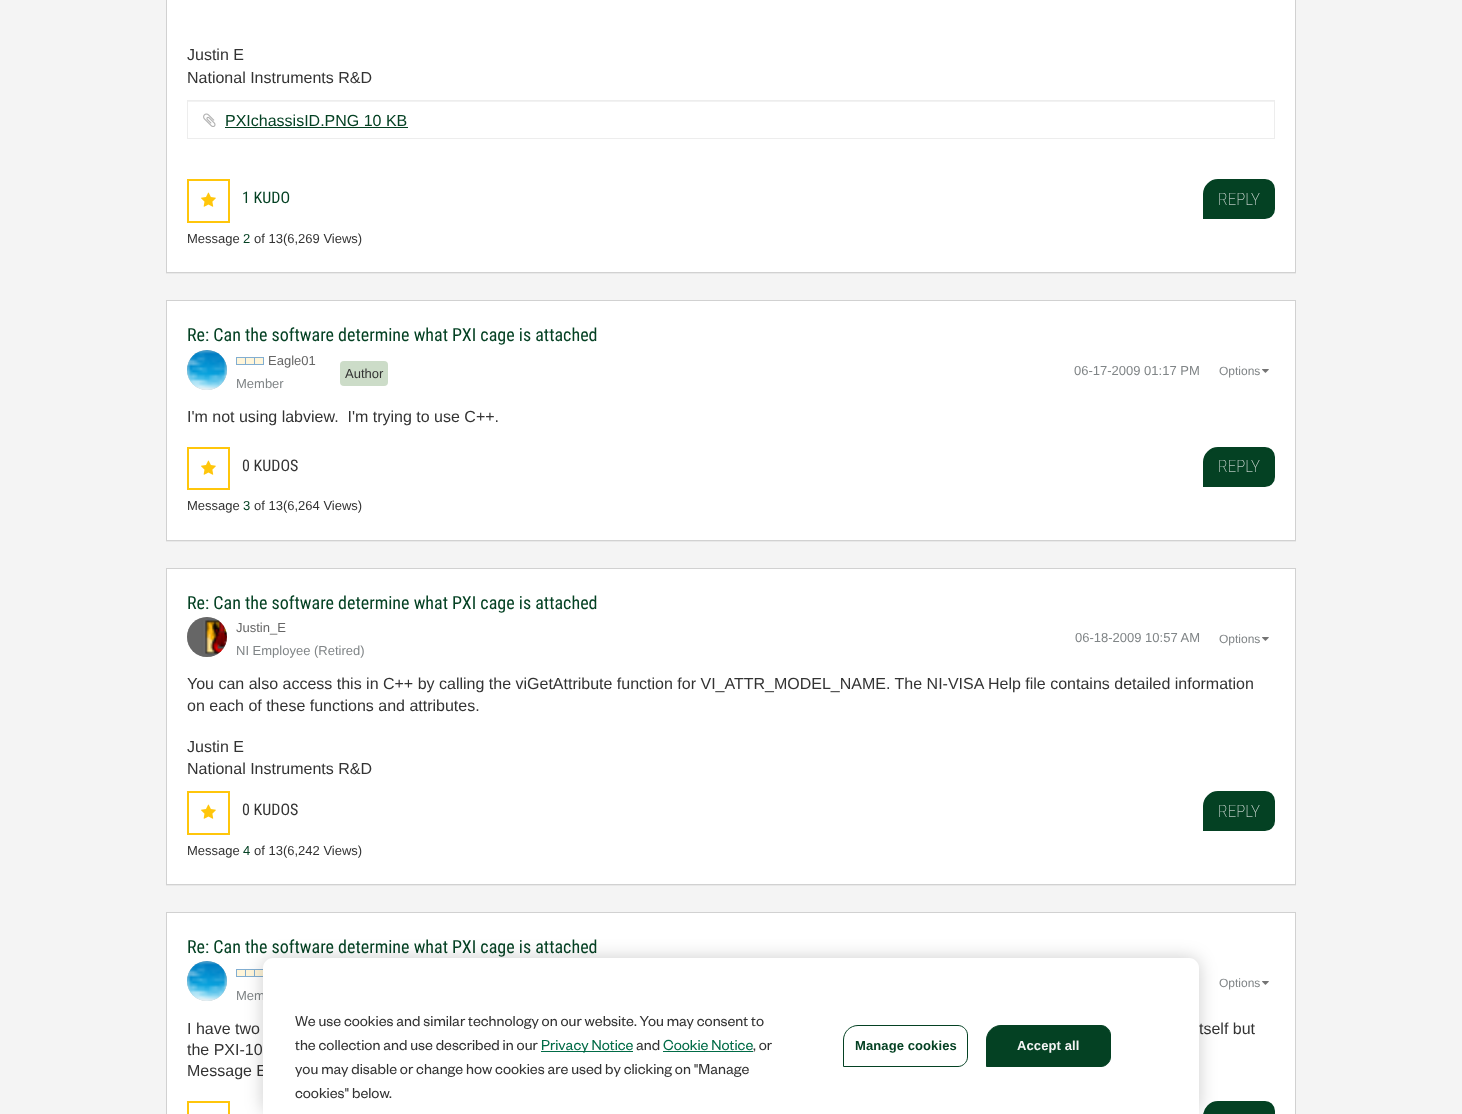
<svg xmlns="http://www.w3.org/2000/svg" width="1462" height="1114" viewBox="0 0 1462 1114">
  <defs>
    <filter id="blur1" x="-50%" y="-200%" width="200%" height="500%"><feGaussianBlur stdDeviation="0.5"/></filter>
    <filter id="blur2" x="-50%" y="-200%" width="200%" height="500%"><feGaussianBlur stdDeviation="9"/></filter>
  </defs>
  <rect width="100%" height="100%" fill="#f4f4f4"/>
  <rect x="166" y="-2" width="1130" height="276" fill="#000000" fill-opacity="0.05" filter="url(#blur1)"/>
  <rect x="166.5" y="-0.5" width="1129" height="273" fill="#ffffff" stroke="#d1d1d1"/>
  <text x="187" y="60" font-family="Liberation Sans" font-size="16" fill="#333333">Justin E</text>
  <text x="187" y="83" font-family="Liberation Sans" font-size="16" fill="#333333">National Instruments R&amp;D</text>
  <rect x="188" y="101" width="1086" height="1" fill="#f2f2f2"/>
  <rect x="187.5" y="100.5" width="1087" height="38" fill="none" stroke="#ededed"/>
  <image x="203" y="113" width="13" height="14" href="img1.png"/>
  <text x="225" y="126" font-family="Liberation Sans" font-size="16" fill="#044123">PXIchassisID.PNG 10 KB</text>
  <rect x="225" y="127" width="183" height="1" fill="#044123"/>
  <rect x="187.5" y="179.5" width="42" height="43" fill="none" stroke="#ffc60b"/>
  <rect x="188.5" y="180.5" width="40" height="41" fill="none" stroke="#ffc60b"/>
  <image x="201" y="192" width="15" height="15" href="img2.png"/>
  <text x="242" y="203" font-family="Roboto Condensed" font-size="16" fill="#044123">1 KUDO</text>
  <text x="187" y="243" font-family="Liberation Sans" font-size="13" fill="#333333">Message</text>
  <text x="243" y="243" font-family="Liberation Sans" font-size="13" fill="#044123">2</text>
  <text x="254" y="243" font-family="Liberation Sans" font-size="13" fill="#333333">of 13(6,269 Views)</text>
  <path d="M1218 180H1265C1270 180 1274 184 1274 189V209C1274 214 1270 218 1265 218H1204V194C1204 186.5 1210.5 180 1218 180Z" fill="#044123" stroke="#044123" stroke-width="2"/>
  <text x="1218" y="205" font-family="Roboto Condensed" font-size="17" font-weight="100" fill="#f4f4f4">REPLY</text>
  <rect x="166" y="301" width="1130" height="241" fill="#000000" fill-opacity="0.05" filter="url(#blur1)"/>
  <rect x="166.5" y="300.5" width="1129" height="240" fill="#ffffff" stroke="#d1d1d1"/>
  <text x="187" y="341" font-family="Roboto Condensed" font-size="18" fill="#044123">Re: Can the software determine what PXI cage is attached</text>
  <rect x="187" y="350" width="40" height="40" rx="20" fill="#c4c4c4" filter="url(#blur1)"/>
  <image x="187" y="350" width="40" height="40" href="img3.png"/>
  <image x="236" y="357" width="28" height="8" href="img4.png"/>
  <text x="268" y="365" font-family="Liberation Sans" font-size="13" fill="#666666">Eagle01</text>
  <text x="236" y="388" font-family="Liberation Sans" font-size="13" fill="#808587">Member</text>
  <rect x="340" y="361" width="48" height="25" rx="4" fill="#ccdcc8"/>
  <text x="345" y="378" font-family="Liberation Sans" font-size="13" fill="#333333">Author</text>
  <text x="1074" y="375" font-family="Liberation Sans" font-size="13" fill="#808587">06-17-2009 01:17 PM</text>
  <text x="1219" y="375" font-family="Liberation Sans" font-size="12" fill="#808587">Options</text>
  <image x="1262" y="369" width="7" height="4" href="img5.png"/>
  <text x="187" y="422" font-family="Liberation Sans" font-size="16" fill="#333333" xml:space="preserve">I'm not using labview.  I'm trying to use C++.</text>
  <rect x="187.5" y="447.5" width="42" height="42" fill="none" stroke="#ffc60b"/>
  <rect x="188.5" y="448.5" width="40" height="40" fill="none" stroke="#ffc60b"/>
  <image x="201" y="460" width="15" height="15" href="img2.png"/>
  <text x="242" y="471" font-family="Roboto Condensed" font-size="16" fill="#333333">0 KUDOS</text>
  <text x="187" y="510" font-family="Liberation Sans" font-size="13" fill="#333333">Message</text>
  <text x="243" y="510" font-family="Liberation Sans" font-size="13" fill="#044123">3</text>
  <text x="254" y="510" font-family="Liberation Sans" font-size="13" fill="#333333">of 13(6,264 Views)</text>
  <path d="M1218 448H1265C1270 448 1274 452 1274 457V477C1274 482 1270 486 1265 486H1204V462C1204 454.5 1210.5 448 1218 448Z" fill="#044123" stroke="#044123" stroke-width="2"/>
  <text x="1218" y="472" font-family="Roboto Condensed" font-size="17" font-weight="100" fill="#f4f4f4">REPLY</text>
  <rect x="166" y="569" width="1130" height="317" fill="#000000" fill-opacity="0.05" filter="url(#blur1)"/>
  <rect x="166.5" y="568.5" width="1129" height="316" fill="#ffffff" stroke="#d1d1d1"/>
  <text x="187" y="609" font-family="Roboto Condensed" font-size="18" fill="#044123">Re: Can the software determine what PXI cage is attached</text>
  <rect x="187" y="617" width="40" height="40" rx="20" fill="#c4c4c4" filter="url(#blur1)"/>
  <image x="187" y="617" width="40" height="40" href="img6.png"/>
  <text x="236" y="632" font-family="Liberation Sans" font-size="13" fill="#666666">Justin_E</text>
  <text x="236" y="655" font-family="Liberation Sans" font-size="13" fill="#808587">NI Employee (Retired)</text>
  <text x="1075" y="642" font-family="Liberation Sans" font-size="13" fill="#808587">06-18-2009 10:57 AM</text>
  <text x="1219" y="643" font-family="Liberation Sans" font-size="12" fill="#808587">Options</text>
  <image x="1262" y="637" width="7" height="4" href="img5.png"/>
  <text x="187" y="689" font-family="Liberation Sans" font-size="16" fill="#333333">You can also access this in C++ by calling the viGetAttribute function for VI_ATTR_MODEL_NAME. The NI-VISA Help file contains detailed information</text>
  <text x="187" y="711" font-family="Liberation Sans" font-size="16" fill="#333333">on each of these functions and attributes.</text>
  <text x="187" y="752" font-family="Liberation Sans" font-size="16" fill="#333333">Justin E</text>
  <text x="187" y="774" font-family="Liberation Sans" font-size="16" fill="#333333">National Instruments R&amp;D</text>
  <rect x="187.5" y="791.5" width="42" height="43" fill="none" stroke="#ffc60b"/>
  <rect x="188.5" y="792.5" width="40" height="41" fill="none" stroke="#ffc60b"/>
  <image x="201" y="804" width="15" height="15" href="img2.png"/>
  <text x="242" y="815" font-family="Roboto Condensed" font-size="16" fill="#333333">0 KUDOS</text>
  <text x="187" y="855" font-family="Liberation Sans" font-size="13" fill="#333333">Message</text>
  <text x="243" y="855" font-family="Liberation Sans" font-size="13" fill="#044123">4</text>
  <text x="254" y="855" font-family="Liberation Sans" font-size="13" fill="#333333">of 13(6,242 Views)</text>
  <path d="M1218 792H1265C1270 792 1274 796 1274 801V821C1274 826 1270 830 1265 830H1204V806C1204 798.5 1210.5 792 1218 792Z" fill="#044123" stroke="#044123" stroke-width="2"/>
  <text x="1218" y="817" font-family="Roboto Condensed" font-size="17" font-weight="100" fill="#f4f4f4">REPLY</text>
  <rect x="166.5" y="912.5" width="1129" height="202" fill="#ffffff" stroke="#d1d1d1"/>
  <text x="187" y="953" font-family="Roboto Condensed" font-size="18" fill="#044123">Re: Can the software determine what PXI cage is attached</text>
  <text x="1219" y="987" font-family="Liberation Sans" font-size="12" fill="#808587">Options</text>
  <image x="1262" y="981" width="7" height="4" href="img5.png"/>
  <rect x="187" y="961" width="40" height="40" rx="20" fill="#c4c4c4" filter="url(#blur1)"/>
  <image x="187" y="961" width="40" height="40" href="img3.png"/>
  <image x="236" y="969" width="27" height="8" href="img7.png"/>
  <text x="236" y="1000" font-family="Liberation Sans" font-size="13" fill="#808587">Mem</text>
  <text x="187" y="1034" font-family="Liberation Sans" font-size="16" fill="#333333">I have two</text>
  <text x="1199" y="1034" font-family="Liberation Sans" font-size="16" fill="#333333">tself but</text>
  <text x="187" y="1055" font-family="Liberation Sans" font-size="16" fill="#333333">the PXI-10</text>
  <text x="187" y="1076" font-family="Liberation Sans" font-size="16" fill="#333333">Message E</text>
  <rect x="187.5" y="1101.5" width="42" height="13" fill="none" stroke="#ffc60b"/>
  <rect x="188.5" y="1102.5" width="40" height="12" fill="none" stroke="#ffc60b"/>
  <path d="M1218 1102H1265C1270 1102 1274 1106 1274 1111V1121C1274 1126 1270 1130 1265 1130H1204V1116C1204 1108.5 1210.5 1102 1218 1102Z" fill="#044123" stroke="#044123" stroke-width="2"/>
  <rect x="263" y="958" width="936" height="156" rx="10" fill="#000000" fill-opacity="0.2" filter="url(#blur2)"/>
  <path d="M273 958H1189C1194.5 958 1199 962.5 1199 968V1114H263V968C263 962.5 267.5 958 273 958Z" fill="#ffffff"/>
  <text x="295" y="1026" font-family="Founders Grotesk" font-size="16" fill="#333333">We use cookies and similar technology on our website. You may consent to</text>
  <text x="295" y="1050" font-family="Founders Grotesk" font-size="16" fill="#333333">the collection and use described in our</text>
  <rect x="541" y="1051" width="92" height="1" fill="#006b46"/>
  <text x="541" y="1050" font-family="Founders Grotesk" font-size="16" fill="#006b46">Privacy Notice</text>
  <text x="636" y="1050" font-family="Founders Grotesk" font-size="16" fill="#333333">and</text>
  <text x="663" y="1050" font-family="Founders Grotesk" font-size="16" fill="#006b46">Cookie Notice</text>
  <rect x="663" y="1051" width="90" height="1" fill="#006b46"/>
  <text x="753" y="1050" font-family="Founders Grotesk" font-size="16" fill="#333333">, or</text>
  <text x="295" y="1074" font-family="Founders Grotesk" font-size="16" fill="#333333">you may disable or change how cookies are used by clicking on "Manage</text>
  <text x="295" y="1098" font-family="Founders Grotesk" font-size="16" fill="#333333">cookies" below.</text>
  <path d="M858 1025.5H958C963 1025.5 967.5 1030 967.5 1035V1057C967.5 1062 963 1066.5 958 1066.5H843.5V1040C843.5 1032 850 1025.5 858 1025.5Z" fill="none" stroke="#044123"/>
  <text x="855" y="1050" font-family="Liberation Sans" font-size="13" font-weight="bold" letter-spacing="0.1" fill="#044123">Manage cookies</text>
  <path d="M1001 1025.5H1101C1106 1025.5 1110.5 1030 1110.5 1035V1057C1110.5 1062 1106 1066.5 1101 1066.5H986.5V1040C986.5 1032 993 1025.5 1001 1025.5Z" fill="#044123" stroke="#044123"/>
  <text x="1017" y="1050" font-family="Liberation Sans" font-size="13" font-weight="bold" letter-spacing="0.1" fill="#f4f4f4">Accept all</text>
</svg>
